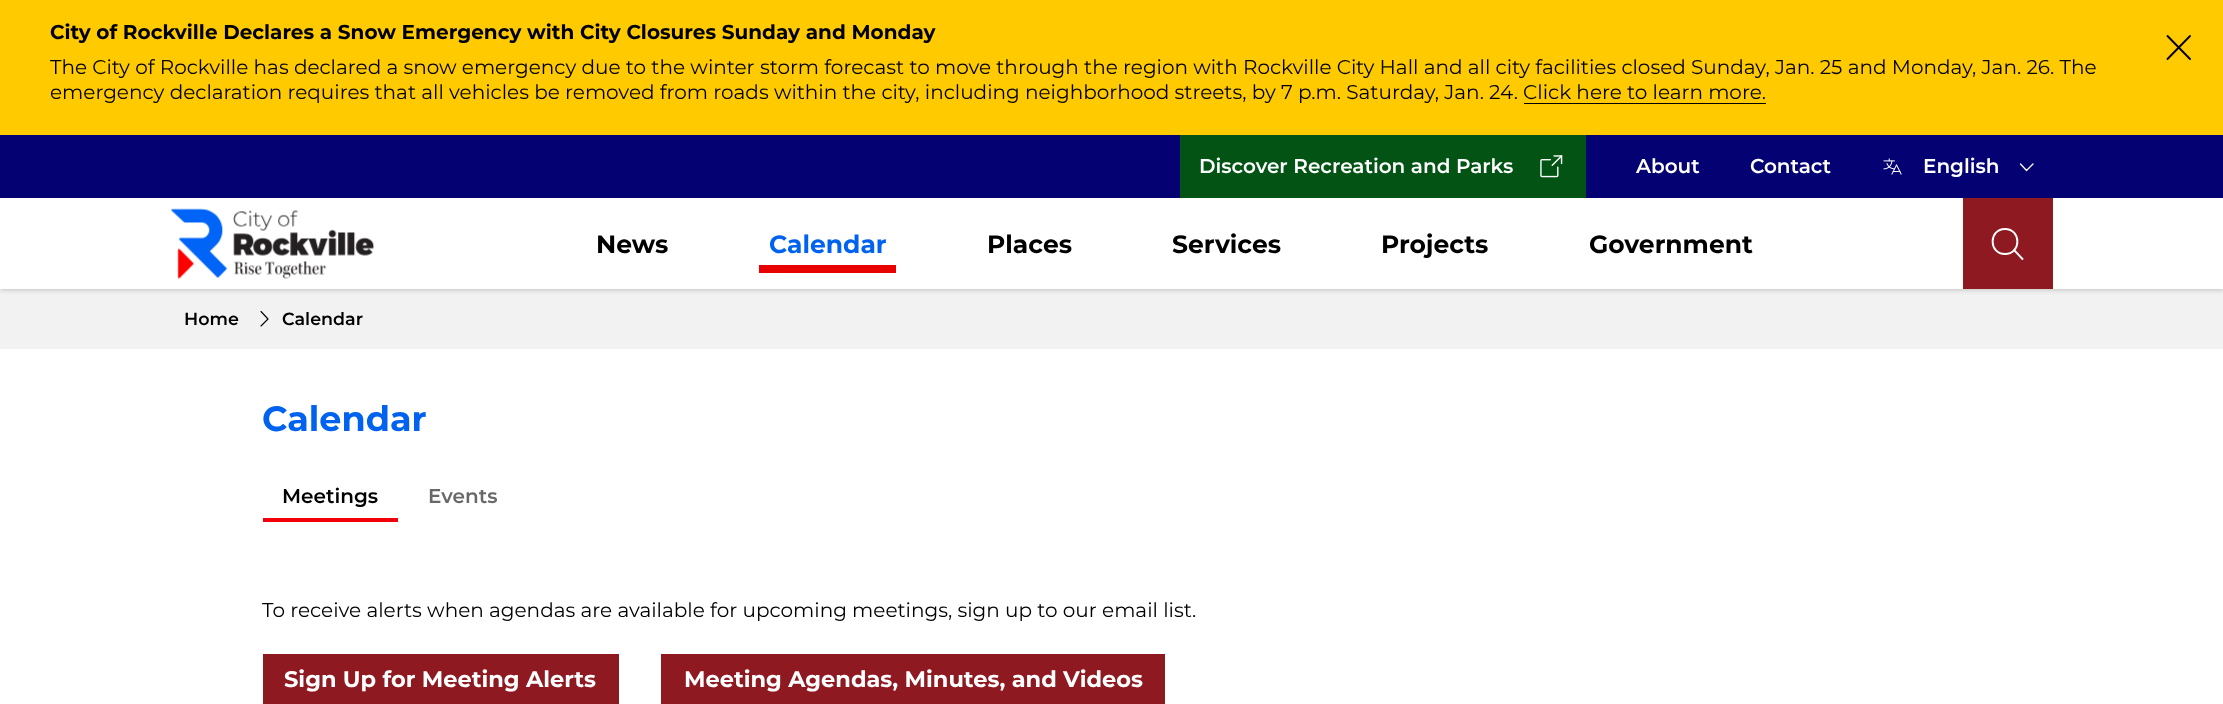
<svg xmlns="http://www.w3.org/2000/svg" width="2223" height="704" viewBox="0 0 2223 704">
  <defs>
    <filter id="blur1" x="-50%" y="-200%" width="200%" height="500%"><feGaussianBlur stdDeviation="2.5"/></filter>
  </defs>
  <rect width="100%" height="100%" fill="#ffffff"/>
  <rect x="0" y="289" width="2223" height="60" fill="#f2f2f2"/>
  <rect x="0" y="1" width="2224" height="289" fill="#000000" fill-opacity="0.2" filter="url(#blur1)"/>
  <rect x="0" y="198" width="2223" height="91" fill="#ffffff"/>
  <rect x="0" y="0" width="2223" height="135" fill="#ffca00"/>
  <text x="50" y="39" font-family="Montserrat" font-size="20" font-weight="bold" fill="#000000">City of Rockville Declares a Snow Emergency with City Closures Sunday and Monday</text>
  <path d="M2190 36L2167.5 59M2190 59L2167.5 36" fill="none" stroke="#000000" stroke-width="1.9" stroke-linecap="round" stroke-linejoin="round"/>
  <text x="50" y="74" font-family="Montserrat" font-size="20" fill="#000000">The City of Rockville has declared a snow emergency due to the winter storm forecast to move through the region with Rockville City Hall and all city facilities closed Sunday, Jan. 25 and Monday, Jan. 26. The</text>
  <text x="50" y="99" font-family="Montserrat" font-size="20" fill="#000000">emergency declaration requires that all vehicles be removed from roads within the city, including neighborhood streets, by 7 p.m. Saturday, Jan. 24. Click here to learn more.</text>
  <rect x="1524" y="103" width="242" height="1" fill="#000000"/>
  <rect x="0" y="135" width="2223" height="63" fill="#040273"/>
  <rect x="1180" y="135" width="406" height="63" fill="#035414"/>
  <text x="1199" y="173" font-family="Montserrat" font-size="20" font-weight="600" fill="#ffffff">Discover Recreation and Parks</text>
  <image x="1540" y="155" width="23" height="23" href="img1.png"/>
  <text x="1636" y="173" font-family="Montserrat" font-size="20" font-weight="600" fill="#ffffff">About</text>
  <text x="1750" y="173" font-family="Montserrat" font-size="20" font-weight="600" fill="#ffffff">Contact</text>
  <image x="1883" y="158" width="19" height="17" href="img2.png"/>
  <path d="M2033 164L2026.5 170.5L2020.5 164" fill="none" stroke="#ffffff" stroke-width="1.3" stroke-linecap="round" stroke-linejoin="round"/>
  <text x="1923" y="173" font-family="Montserrat" font-size="20" font-weight="600" fill="#ffffff">English</text>
  <image x="171" y="208" width="204" height="71" href="img3.png"/>
  <text x="596" y="253" font-family="Montserrat" font-size="25" font-weight="bold" fill="#000000">News</text>
  <rect x="759" y="265" width="137" height="8" fill="#e90000"/>
  <text x="769" y="253" font-family="Montserrat" font-size="25" font-weight="bold" fill="#0062ee">Calendar</text>
  <text x="987" y="253" font-family="Montserrat" font-size="25" font-weight="bold" fill="#000000">Places</text>
  <text x="1172" y="253" font-family="Montserrat" font-size="25" font-weight="bold" fill="#000000">Services</text>
  <text x="1381" y="253" font-family="Montserrat" font-size="25" font-weight="bold" fill="#000000">Projects</text>
  <text x="1589" y="253" font-family="Montserrat" font-size="25" font-weight="bold" fill="#000000">Government</text>
  <rect x="1963" y="198" width="90" height="91" fill="#8e1921"/>
  <path d="M2005 254C2021.5 254 2021.5 229 2005 229C1988.5 229 1988.5 254 2005 254ZM2014 250L2022.5 259" fill="none" stroke="#ffffff" stroke-width="1.9" stroke-linecap="round" stroke-linejoin="round"/>
  <text x="184" y="325" font-family="Montserrat" font-size="17.5" font-weight="600" fill="#000000">Home</text>
  <path d="M261 311.5L268 319L261 326" fill="none" stroke="#000000" stroke-width="1.1" stroke-linecap="round" stroke-linejoin="round"/>
  <text x="282" y="325" font-family="Montserrat" font-size="17.5" font-weight="600" fill="#000000">Calendar</text>
  <text x="262" y="431" font-family="Montserrat" font-size="35" font-weight="bold" fill="#0062ee">Calendar</text>
  <rect x="263" y="518" width="135" height="4" fill="#f40009"/>
  <text x="282" y="503" font-family="Montserrat" font-size="20" font-weight="600" fill="#000000">Meetings</text>
  <text x="428" y="503" font-family="Montserrat" font-size="20" font-weight="600" fill="#686868">Events</text>
  <text x="262" y="617" font-family="Montserrat" font-size="20" fill="#000000">To receive alerts when agendas are available for upcoming meetings, sign up to our email list.</text>
  <rect x="263" y="654" width="356" height="50" fill="#8e1921"/>
  <text x="284" y="687" font-family="Montserrat" font-size="22.5" font-weight="bold" fill="#ffffff">Sign Up for Meeting Alerts</text>
  <rect x="661" y="654" width="504" height="50" fill="#8e1921"/>
  <text x="684" y="687" font-family="Montserrat" font-size="22.5" font-weight="bold" fill="#ffffff">Meeting Agendas, Minutes, and Videos</text>
</svg>
